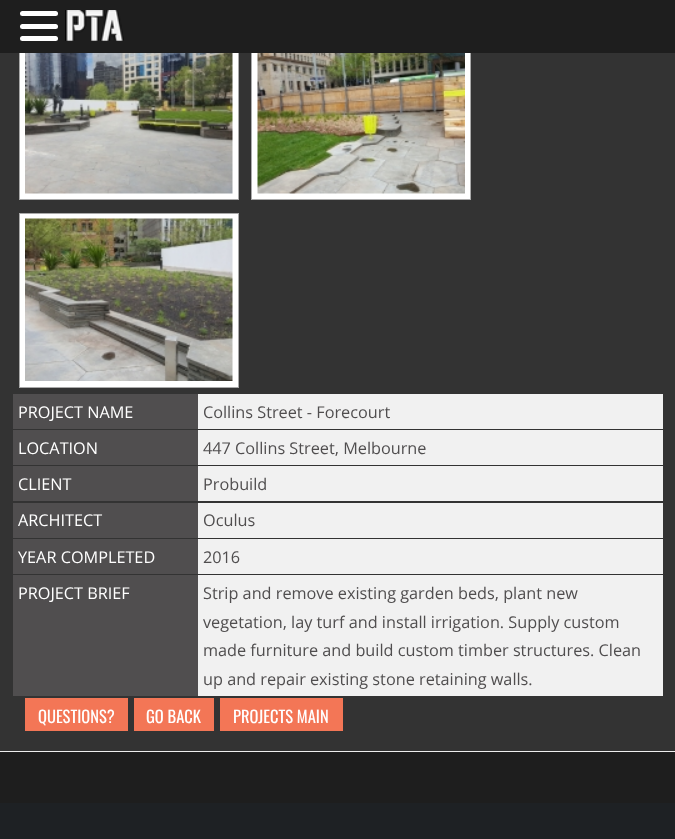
<svg xmlns="http://www.w3.org/2000/svg" width="675" height="839" viewBox="0 0 675 839">
  <rect width="100%" height="100%" fill="#333333"/>
  <rect x="20" y="53" width="218" height="146" fill="#ffffff"/>
  <rect x="19.5" y="25.5" width="219" height="174" fill="none" stroke="#a9a9a9"/>
  <rect x="252" y="53" width="218" height="146" fill="#ffffff"/>
  <rect x="251.5" y="25.5" width="219" height="174" fill="none" stroke="#a9a9a9"/>
  <rect x="0" y="0" width="675" height="53" fill="#1e1e1e"/>
  <rect x="20" y="11" width="38" height="5" rx="2.5" fill="#ffffff"/>
  <rect x="20" y="24" width="38" height="5" rx="2.5" fill="#ffffff"/>
  <rect x="20" y="36" width="38" height="5" rx="2.5" fill="#ffffff"/>
  <image x="65" y="10" width="59" height="31" href="img1.png"/>
  <image x="25" y="53" width="208" height="141" href="img2.png"/>
  <image x="257" y="53" width="208" height="141" href="img3.png"/>
  <rect x="19.5" y="213.5" width="219" height="174" fill="#ffffff" stroke="#a9a9a9"/>
  <image x="25" y="218" width="208" height="163" href="img4.png"/>
  <rect x="13" y="394" width="185" height="35" fill="#504e4f"/>
  <text x="18" y="418" font-family="Open Sans" font-size="16.25" fill="#ffffff">PROJECT NAME</text>
  <rect x="198" y="394" width="465" height="35" fill="#f1f1f1"/>
  <text x="203" y="418" font-family="Open Sans" font-size="16.25" fill="#504e4f">Collins Street - Forecourt</text>
  <rect x="13" y="430" width="185" height="35" fill="#504e4f"/>
  <text x="18" y="454" font-family="Open Sans" font-size="16.25" fill="#ffffff">LOCATION</text>
  <rect x="198" y="430" width="465" height="35" fill="#f1f1f1"/>
  <text x="203" y="454" font-family="Open Sans" font-size="16.25" fill="#504e4f">447 Collins Street, Melbourne</text>
  <rect x="13" y="466" width="185" height="35" fill="#504e4f"/>
  <text x="18" y="490" font-family="Open Sans" font-size="16.25" fill="#ffffff">CLIENT</text>
  <rect x="198" y="466" width="465" height="35" fill="#f1f1f1"/>
  <text x="203" y="490" font-family="Open Sans" font-size="16.25" fill="#504e4f">Probuild</text>
  <rect x="13" y="503" width="185" height="35" fill="#504e4f"/>
  <text x="18" y="526" font-family="Open Sans" font-size="16.25" fill="#ffffff">ARCHITECT</text>
  <rect x="198" y="503" width="465" height="35" fill="#f1f1f1"/>
  <text x="203" y="526" font-family="Open Sans" font-size="16.25" fill="#504e4f">Oculus</text>
  <rect x="13" y="539" width="185" height="35" fill="#504e4f"/>
  <text x="18" y="563" font-family="Open Sans" font-size="16.25" fill="#ffffff">YEAR COMPLETED</text>
  <rect x="198" y="539" width="465" height="35" fill="#f1f1f1"/>
  <text x="203" y="563" font-family="Open Sans" font-size="16.25" fill="#504e4f">2016</text>
  <rect x="13" y="575" width="185" height="121" fill="#504e4f"/>
  <text x="18" y="599" font-family="Open Sans" font-size="16.25" fill="#ffffff">PROJECT BRIEF</text>
  <rect x="198" y="575" width="465" height="121" fill="#f1f1f1"/>
  <text x="203" y="599" font-family="Open Sans" font-size="16.25" fill="#504e4f">Strip and remove existing garden beds, plant new</text>
  <text x="203" y="628" font-family="Open Sans" font-size="16.25" fill="#504e4f">vegetation, lay turf and install irrigation. Supply custom</text>
  <text x="203" y="656" font-family="Open Sans" font-size="16.25" fill="#504e4f">made furniture and build custom timber structures. Clean</text>
  <text x="203" y="685" font-family="Open Sans" font-size="16.25" fill="#504e4f">up and repair existing stone retaining walls.</text>
  <rect x="25" y="698" width="103" height="33" fill="#f37656"/>
  <text x="38" y="723" font-family="Oswald" font-size="16.5" fill="#ffffff">QUESTIONS?</text>
  <rect x="134" y="698" width="80" height="33" fill="#f37656"/>
  <text x="146" y="723" font-family="Oswald" font-size="16.5" fill="#ffffff">GO BACK</text>
  <rect x="220" y="698" width="123" height="33" fill="#f37656"/>
  <text x="233" y="723" font-family="Oswald" font-size="16.5" fill="#ffffff">PROJECTS MAIN</text>
  <rect x="0" y="803" width="675" height="36" fill="#1e2124"/>
  <rect x="0" y="752" width="675" height="51" fill="#1e1e1e"/>
  <rect x="0" y="751" width="675" height="1" fill="#eeeeee"/>
</svg>
